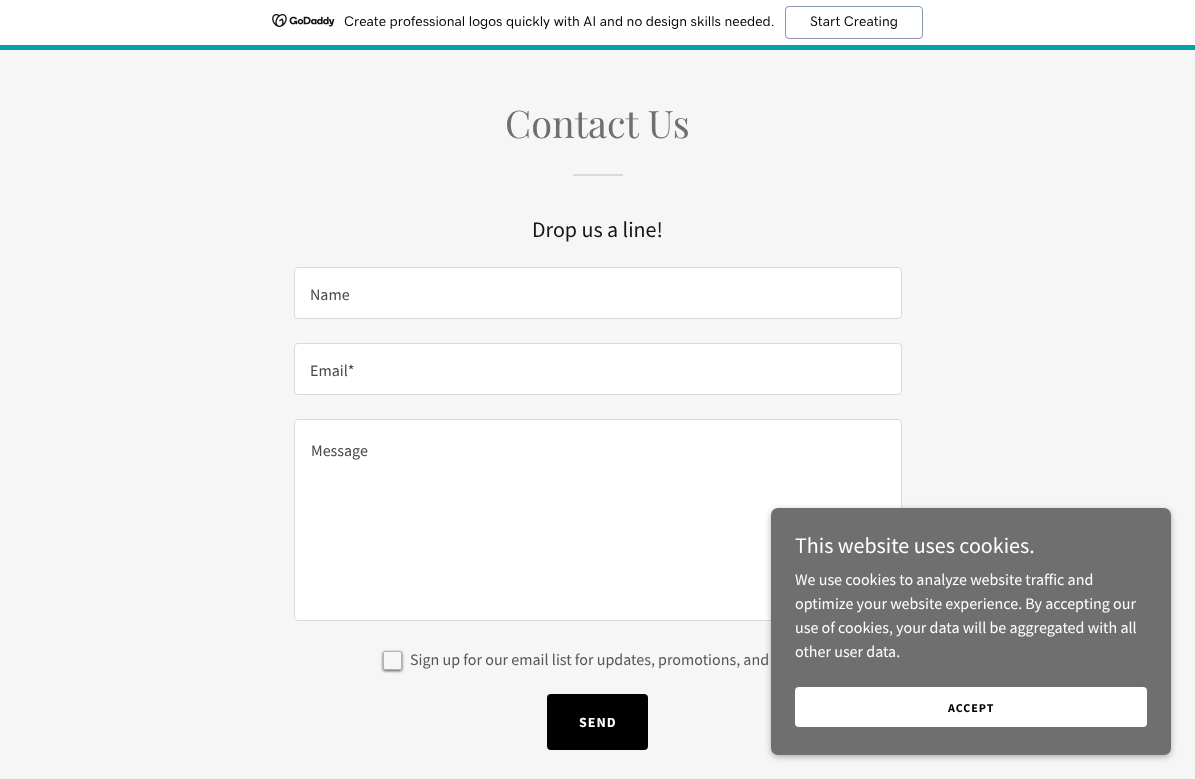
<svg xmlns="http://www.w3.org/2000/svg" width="1195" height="779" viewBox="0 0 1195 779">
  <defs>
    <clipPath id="clip1"><path d="M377 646H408V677H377ZM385 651H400C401 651 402 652 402 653V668C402 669 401 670 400 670H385C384 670 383 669 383 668V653C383 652 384 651 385 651Z" clip-rule="evenodd"/></clipPath>
    <filter id="blur1" x="-50%" y="-200%" width="200%" height="500%"><feGaussianBlur stdDeviation="1.5"/></filter>
    <filter id="blur2" x="-50%" y="-200%" width="200%" height="500%"><feGaussianBlur stdDeviation="3"/></filter>
  </defs>
  <rect width="100%" height="100%" fill="#f6f6f6"/>
  <rect x="0" y="0" width="1195" height="45" fill="#ffffff"/>
  <rect x="0" y="45" width="1195" height="5" fill="#00a4a6"/>
  <image x="272" y="14" width="63" height="13" href="img1.png"/>
  <text x="344" y="26" font-family="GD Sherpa" font-size="14" font-weight="500" fill="#000000">Create professional logos quickly with AI and no design skills needed.</text>
  <rect x="785.5" y="6.5" width="137" height="32" rx="3.5" fill="none" stroke="#8995a9"/>
  <text x="810" y="26" font-family="GD Sherpa" font-size="14" font-weight="500" fill="#000000">Start Creating</text>
  <text x="505" y="138" font-family="Playfair Display" font-size="38" fill="#6f6f6f">Contact Us</text>
  <rect x="573" y="174" width="50" height="2" fill="#dadada"/>
  <text x="532" y="237" font-family="Source Sans Pro" font-size="22" fill="#151515">Drop us a line!</text>
  <rect x="294.5" y="267.5" width="607" height="51" rx="3.5" fill="#ffffff" stroke="#dadada"/>
  <text x="310" y="300" font-family="Source Sans Pro" font-size="16" fill="#474747">Name</text>
  <rect x="294.5" y="343.5" width="607" height="51" rx="3.5" fill="#ffffff" stroke="#dadada"/>
  <text x="310" y="376" font-family="Source Sans Pro" font-size="16" fill="#474747">Email*</text>
  <rect x="294.5" y="419.5" width="607" height="201" rx="3.5" fill="#ffffff" stroke="#dadada"/>
  <text x="311" y="456" font-family="Source Sans Pro" font-size="16" fill="#474747">Message</text>
  <g clip-path="url(#clip1)">
    <rect x="383" y="652" width="19" height="19" rx="2" fill="#525252" filter="url(#blur1)"/>
  </g>
  <rect x="383.5" y="651.5" width="18" height="18" rx="1.5" fill="none" stroke="#6f6f6f" stroke-opacity="0.5"/>
  <text x="410" y="665" font-family="Source Sans Pro" font-size="16" fill="#575757">Sign up for our email list for updates, promotions, and</text>
  <rect x="547" y="694" width="101" height="56" rx="4" fill="#000000"/>
  <text x="579" y="727" font-family="Source Sans Pro" font-size="14" font-weight="bold" letter-spacing="1" fill="#ffffff">SEND</text>
  <rect x="771" y="510" width="400" height="247" rx="7" fill="#000000" fill-opacity="0.3" filter="url(#blur2)"/>
  <rect x="771" y="508" width="400" height="247" rx="7" fill="#6f6f6f"/>
  <text x="795" y="553" font-family="Source Sans Pro" font-size="22" fill="#ffffff">This website uses cookies.</text>
  <text x="795" y="585" font-family="Source Sans Pro" font-size="16" fill="#ffffff">We use cookies to analyze website traffic and</text>
  <text x="795" y="609" font-family="Source Sans Pro" font-size="16" fill="#ffffff">optimize your website experience. By accepting our</text>
  <text x="795" y="633" font-family="Source Sans Pro" font-size="16" fill="#ffffff">use of cookies, your data will be aggregated with all</text>
  <text x="795" y="657" font-family="Source Sans Pro" font-size="16" fill="#ffffff">other user data.</text>
  <rect x="795" y="687" width="352" height="40" rx="4" fill="#ffffff"/>
  <text x="948" y="712" font-family="Source Sans Pro" font-size="12" font-weight="bold" letter-spacing="1" fill="#000000">ACCEPT</text>
</svg>
